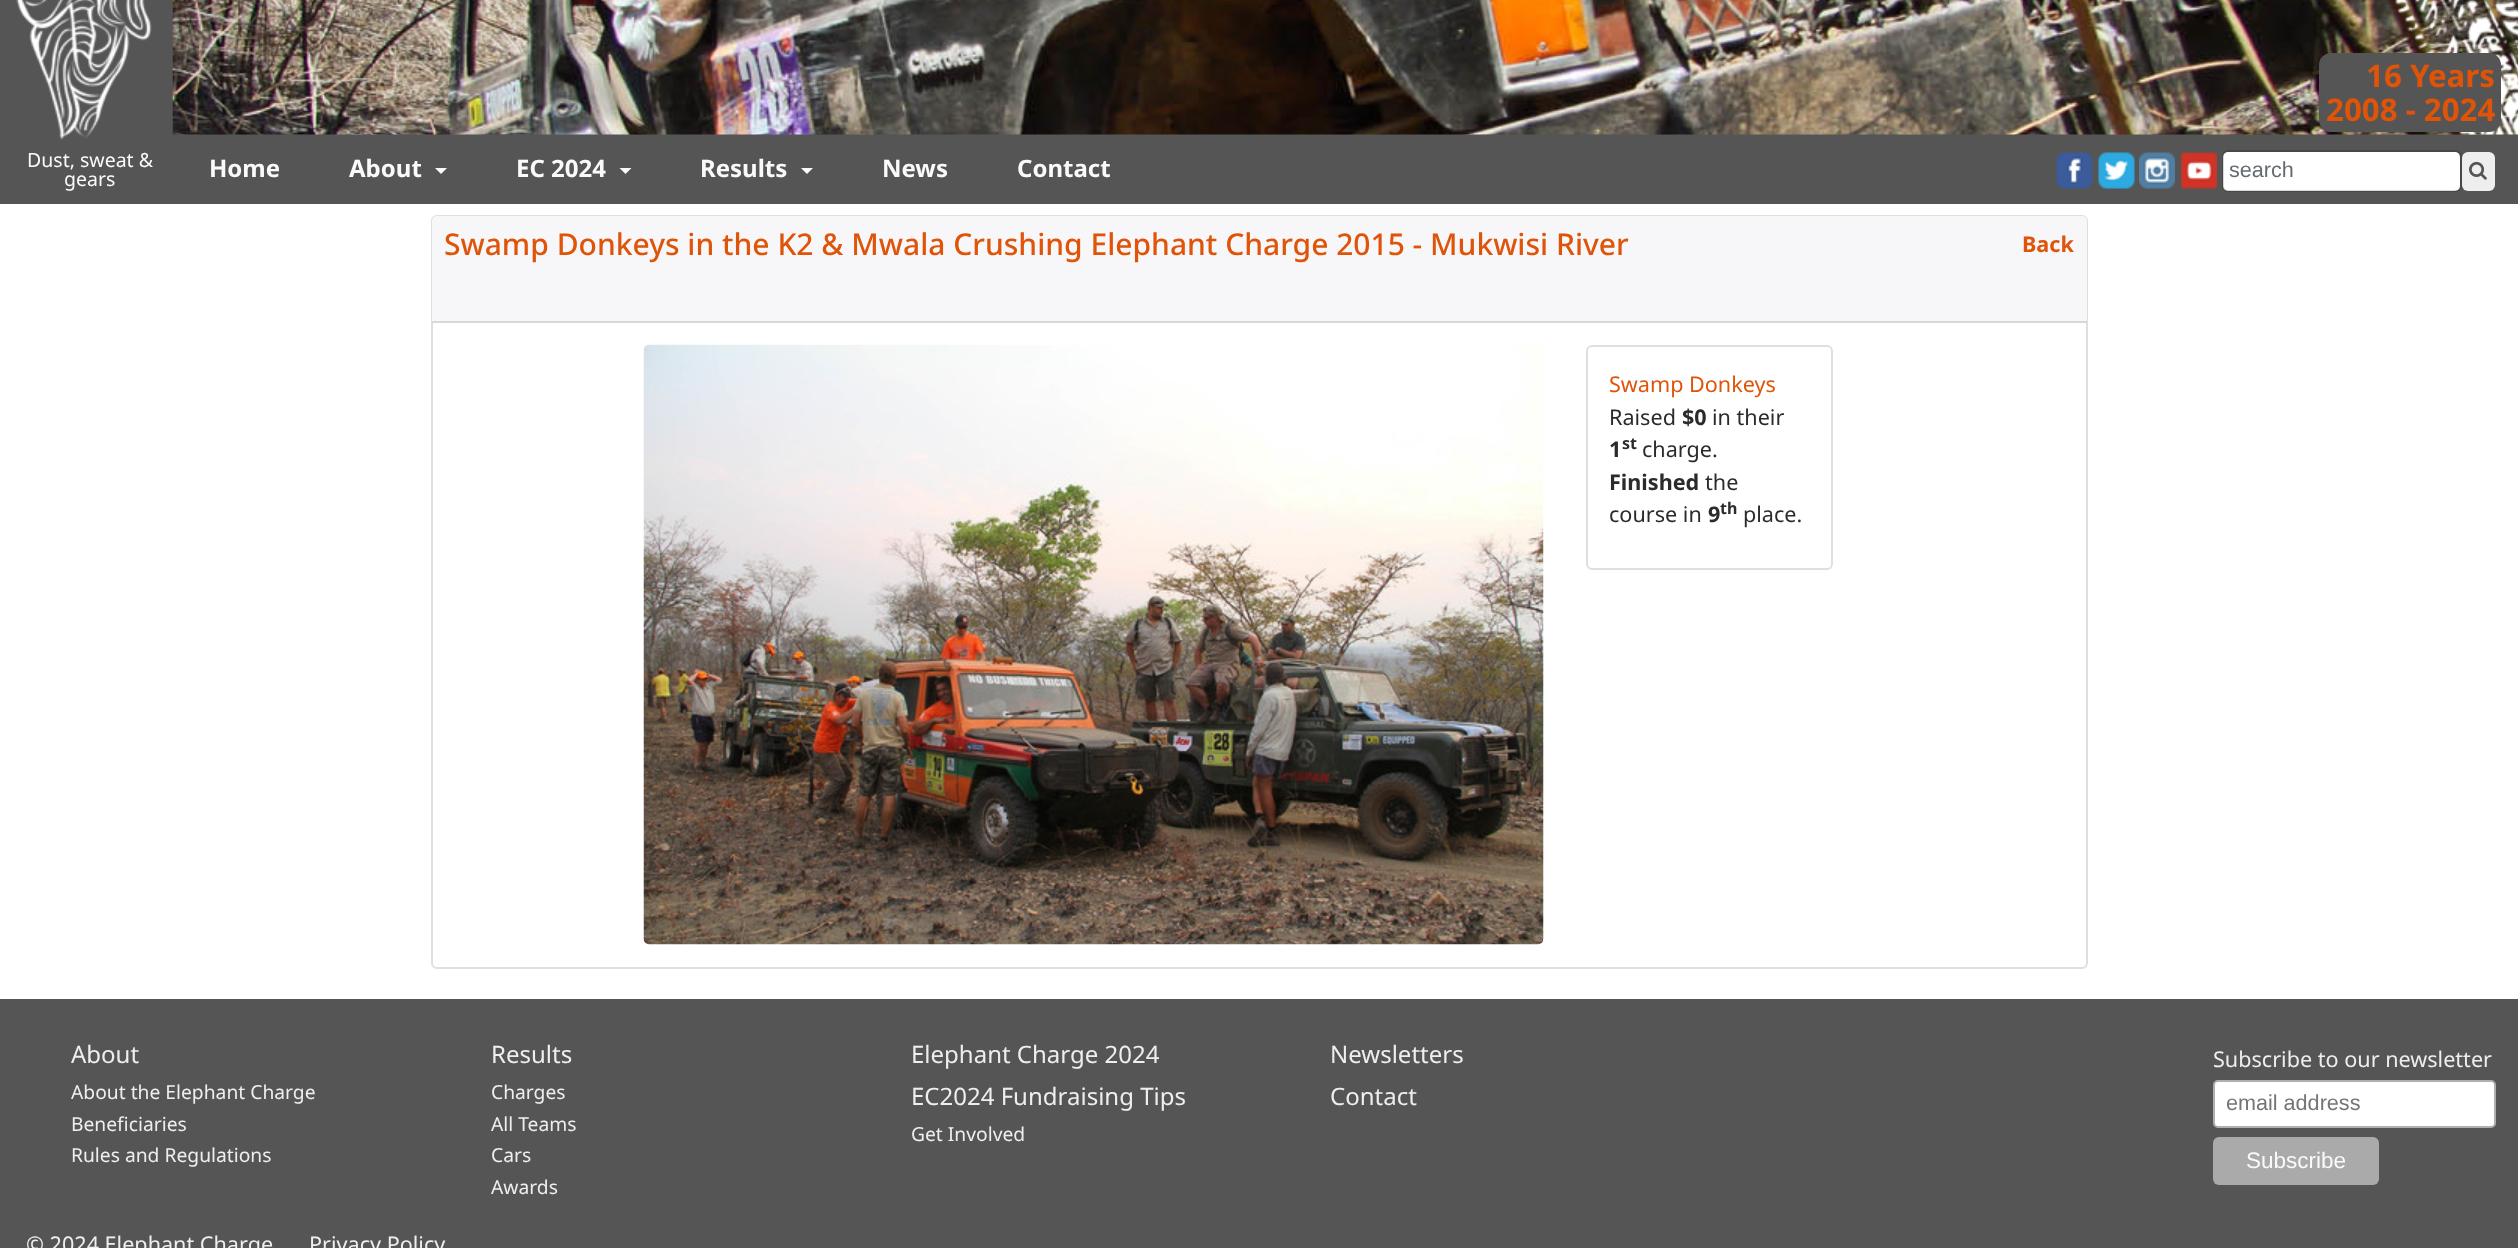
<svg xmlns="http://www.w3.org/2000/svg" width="2518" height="1248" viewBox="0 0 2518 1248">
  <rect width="100%" height="100%" fill="#ffffff"/>
  <rect x="0" y="0" width="2518" height="204" fill="#555555"/>
  <image x="172" y="0" width="2346" height="135" href="img3.png"/>
  <image x="2395" y="0" width="123" height="135" href="img1.png"/>
  <rect x="2319" y="53" width="182" height="79" rx="12" fill="#555555"/>
  <text x="2366" y="87" font-family="Noto Sans" font-size="31.25" font-weight="bold" fill="#df5409">16 Years</text>
  <text x="2326" y="121" font-family="Noto Sans" font-size="31.25" font-weight="bold" fill="#df5409">2008 - 2024</text>
  <image x="16" y="0" width="136" height="140" href="img2.png"/>
  <text x="27" y="167" font-family="Noto Sans" font-size="19.5" fill="#fafafa">Dust, sweat &amp;</text>
  <text x="64" y="186" font-family="Noto Sans" font-size="19.5" fill="#fafafa">gears</text>
  <text x="209" y="177" font-family="Noto Sans" font-size="24" font-weight="bold" fill="#fafafa">Home</text>
  <text x="349" y="177" font-family="Noto Sans" font-size="24" font-weight="bold" fill="#fafafa">About</text>
  <path d="M435 168H447L441 174Z" fill="#fafafa"/>
  <text x="516" y="177" font-family="Noto Sans" font-size="24" font-weight="bold" fill="#fafafa">EC 2024</text>
  <path d="M619.5 168H631.5L625.5 174Z" fill="#fafafa"/>
  <text x="700" y="177" font-family="Noto Sans" font-size="24" font-weight="bold" fill="#fafafa">Results</text>
  <path d="M801 168H813L807 174Z" fill="#fafafa"/>
  <text x="882" y="177" font-family="Noto Sans" font-size="24" font-weight="bold" fill="#fafafa">News</text>
  <text x="1017" y="177" font-family="Noto Sans" font-size="24" font-weight="bold" fill="#fafafa">Contact</text>
  <image x="2056" y="152" width="37" height="37" href="img4.png"/>
  <image x="2098" y="152" width="37" height="37" href="img5.png"/>
  <image x="2139" y="152" width="36" height="37" href="img6.png"/>
  <image x="2181" y="152" width="36" height="37" href="img7.png"/>
  <rect x="2223" y="152" width="237" height="39" rx="5" fill="#ffffff"/>
  <rect x="2223" y="151" width="238" height="40" rx="5" fill="none" stroke="#000000" stroke-opacity="0.15" stroke-width="2"/>
  <text x="2229" y="177" font-family="Liberation Sans" font-size="21.6" fill="#636c72">search</text>
  <rect x="2462" y="152" width="33" height="39" rx="6" fill="#eeeeee"/>
  <image x="2469" y="161" width="18" height="19" href="img8.png"/>
  <rect x="432" y="216" width="1655" height="752" rx="5" fill="none" stroke="#dfdfdf" stroke-width="2"/>
  <path d="M437 216H2082C2085 216 2087 218 2087 221V323H432V221C432 218 434 216 437 216Z" fill="#f7f7f9"/>
  <rect x="432" y="321" width="1655" height="2" fill="#d8d8da"/>
  <text x="444" y="255" font-family="Noto Sans" font-size="30" font-weight="500" fill="#df5409">Swamp Donkeys in the K2 &amp; Mwala Crushing Elephant Charge 2015 - Mukwisi River</text>
  <text x="2022" y="252" font-family="Noto Sans" font-size="21.6" font-weight="bold" fill="#df5409">Back</text>
  <image x="643" y="344" width="901" height="601" href="img9.png"/>
  <rect x="1587" y="346" width="245" height="223" rx="5" fill="none" stroke="#dfdfdf" stroke-width="2"/>
  <text x="1609" y="392" font-family="Noto Sans" font-size="21.6" fill="#df5409">Swamp Donkeys</text>
  <text x="1609" y="425" font-family="Noto Sans" font-size="21.6" fill="#292b2c">Raised</text>
  <text x="1682" y="425" font-family="Noto Sans" font-size="21.6" font-weight="bold" fill="#292b2c">$0</text>
  <text x="1712" y="425" font-family="Noto Sans" font-size="21.6" fill="#292b2c">in their</text>
  <text x="1609" y="457" font-family="Noto Sans" font-size="21.6" font-weight="bold" fill="#292b2c">1</text>
  <text x="1622" y="449" font-family="Noto Sans" font-size="16" font-weight="bold" fill="#292b2c">st</text>
  <text x="1642" y="457" font-family="Noto Sans" font-size="21.6" fill="#292b2c">charge.</text>
  <text x="1609" y="490" font-family="Noto Sans" font-size="21.6" font-weight="bold" fill="#292b2c">Finished</text>
  <text x="1705" y="490" font-family="Noto Sans" font-size="21.6" fill="#292b2c">the</text>
  <text x="1609" y="522" font-family="Noto Sans" font-size="21.6" fill="#292b2c">course in</text>
  <text x="1708" y="522" font-family="Noto Sans" font-size="21.6" font-weight="bold" fill="#292b2c">9</text>
  <text x="1720" y="514" font-family="Noto Sans" font-size="16" font-weight="bold" fill="#292b2c">th</text>
  <text x="1743" y="522" font-family="Noto Sans" font-size="21.6" fill="#292b2c">place.</text>
  <rect x="0" y="999" width="2518" height="249" fill="#555555"/>
  <text x="71" y="1063" font-family="Noto Sans" font-size="24" fill="#eeeeee">About</text>
  <text x="71" y="1099" font-family="Noto Sans" font-size="19.25" fill="#eeeeee">About the Elephant Charge</text>
  <text x="71" y="1131" font-family="Noto Sans" font-size="19.25" fill="#eeeeee">Beneficiaries</text>
  <text x="71" y="1162" font-family="Noto Sans" font-size="19.25" fill="#eeeeee">Rules and Regulations</text>
  <text x="491" y="1063" font-family="Noto Sans" font-size="24" fill="#eeeeee">Results</text>
  <text x="491" y="1099" font-family="Noto Sans" font-size="19.25" fill="#eeeeee">Charges</text>
  <text x="491" y="1131" font-family="Noto Sans" font-size="19.25" fill="#eeeeee">All Teams</text>
  <text x="491" y="1162" font-family="Noto Sans" font-size="19.25" fill="#eeeeee">Cars</text>
  <text x="491" y="1194" font-family="Noto Sans" font-size="19.25" fill="#eeeeee">Awards</text>
  <text x="911" y="1063" font-family="Noto Sans" font-size="24" fill="#eeeeee">Elephant Charge 2024</text>
  <text x="911" y="1105" font-family="Noto Sans" font-size="24" fill="#eeeeee">EC2024 Fundraising Tips</text>
  <text x="911" y="1141" font-family="Noto Sans" font-size="19.25" fill="#eeeeee">Get Involved</text>
  <text x="1330" y="1063" font-family="Noto Sans" font-size="24" fill="#eeeeee">Newsletters</text>
  <text x="1330" y="1105" font-family="Noto Sans" font-size="24" fill="#eeeeee">Contact</text>
  <text x="2213" y="1067" font-family="Noto Sans" font-size="21.6" fill="#eeeeee">Subscribe to our newsletter</text>
  <rect x="2214" y="1081" width="281" height="46" rx="4" fill="#ffffff" stroke="#abb0b2" stroke-width="2"/>
  <text x="2226" y="1110" font-family="Liberation Sans" font-size="21.6" fill="#757575">email address</text>
  <rect x="2213" y="1137" width="166" height="48" rx="6" fill="#aaaaaa"/>
  <text x="2246" y="1168" font-family="Liberation Sans" font-size="22.5" fill="#fafafa">Subscribe</text>
  <text x="26" y="1252" font-family="Noto Sans" font-size="21.6" fill="#eeeeee">© 2024 Elephant Charge</text>
  <text x="309" y="1252" font-family="Noto Sans" font-size="21.6" fill="#eeeeee">Privacy Policy</text>
</svg>
